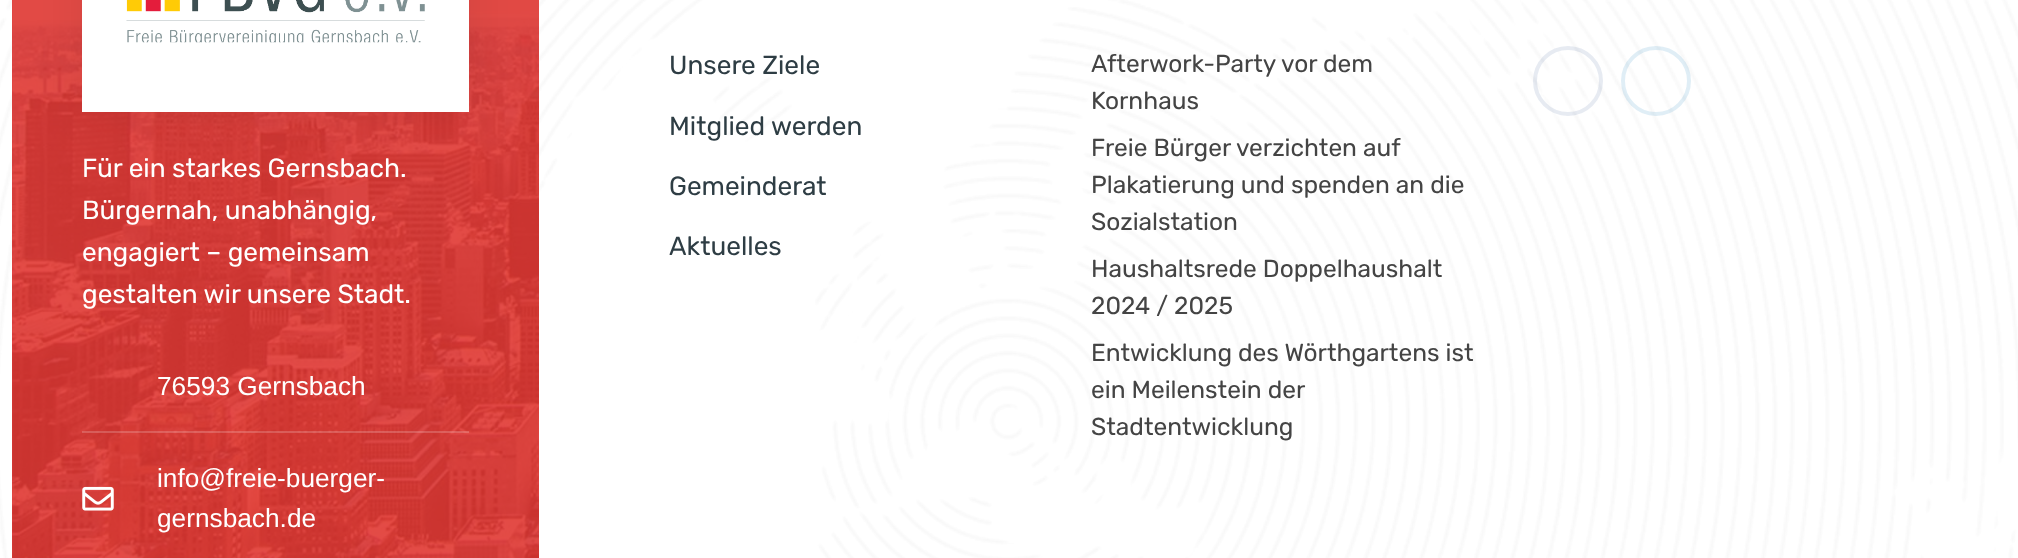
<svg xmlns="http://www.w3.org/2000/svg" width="2018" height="558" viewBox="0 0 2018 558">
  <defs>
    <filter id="blur1" x="-50%" y="-200%" width="200%" height="500%"><feGaussianBlur stdDeviation="22"/></filter>
  </defs>
  <rect width="100%" height="100%" fill="#ffffff"/>
  <image x="0" y="0" width="2018" height="558" href="img1.png"/>
  <rect x="12" y="0" width="527" height="558" fill="#e13833"/>
  <image x="12" y="0" width="527" height="558" href="img2.png"/>
  <rect x="82" y="-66" width="387" height="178" fill="#000000" fill-opacity="0.07" filter="url(#blur1)"/>
  <rect x="82" y="0" width="387" height="112" fill="#ffffff"/>
  <image x="126" y="0" width="299" height="43" href="img3.png"/>
  <text x="82" y="177" font-family="Rubik" font-size="26.25" fill="#ffffff">Für ein starkes Gernsbach.</text>
  <text x="82" y="219" font-family="Rubik" font-size="26.25" fill="#ffffff">Bürgernah, unabhängig,</text>
  <text x="82" y="261" font-family="Rubik" font-size="26.25" fill="#ffffff">engagiert – gemeinsam</text>
  <text x="82" y="303" font-family="Rubik" font-size="26.25" fill="#ffffff">gestalten wir unsere Stadt.</text>
  <text x="157" y="395" font-family="Liberation Sans" font-size="26.25" fill="#ffffff">76593 Gernsbach</text>
  <rect x="82" y="431" width="387" height="2" fill="#ffffff" fill-opacity="0.19"/>
  <image x="82" y="486" width="32" height="25" href="img4.png"/>
  <text x="157" y="487" font-family="Liberation Sans" font-size="26.25" fill="#ffffff">info@freie-buerger-</text>
  <text x="157" y="527" font-family="Liberation Sans" font-size="26.25" fill="#ffffff">gernsbach.de</text>
  <text x="669" y="74" font-family="Rubik" font-size="26.25" fill="#2e3d44">Unsere Ziele</text>
  <text x="669" y="135" font-family="Rubik" font-size="26.25" fill="#2e3d44">Mitglied werden</text>
  <text x="669" y="195" font-family="Rubik" font-size="26.25" fill="#2e3d44">Gemeinderat</text>
  <text x="669" y="255" font-family="Rubik" font-size="26.25" fill="#2e3d44">Aktuelles</text>
  <text x="1091" y="72" font-family="Rubik" font-size="24.5" fill="#444444">Afterwork-Party vor dem</text>
  <text x="1091" y="109" font-family="Rubik" font-size="24.5" fill="#444444">Kornhaus</text>
  <text x="1091" y="156" font-family="Rubik" font-size="24.5" fill="#444444">Freie Bürger verzichten auf</text>
  <text x="1091" y="193" font-family="Rubik" font-size="24.5" fill="#444444">Plakatierung und spenden an die</text>
  <text x="1091" y="230" font-family="Rubik" font-size="24.5" fill="#444444">Sozialstation</text>
  <text x="1091" y="277" font-family="Rubik" font-size="24.5" fill="#444444">Haushaltsrede Doppelhaushalt</text>
  <text x="1091" y="314" font-family="Rubik" font-size="24.5" fill="#444444">2024 / 2025</text>
  <text x="1091" y="361" font-family="Rubik" font-size="24.5" fill="#444444">Entwicklung des Wörthgartens ist</text>
  <text x="1091" y="398" font-family="Rubik" font-size="24.5" fill="#444444">ein Meilenstein der</text>
  <text x="1091" y="435" font-family="Rubik" font-size="24.5" fill="#444444">Stadtentwicklung</text>
  <circle cx="1568" cy="81" r="33" fill="none" stroke="#3b5998" stroke-opacity="0.12" stroke-width="4"/>
  <circle cx="1656" cy="81" r="33" fill="none" stroke="#0077b5" stroke-opacity="0.12" stroke-width="4"/>
</svg>
